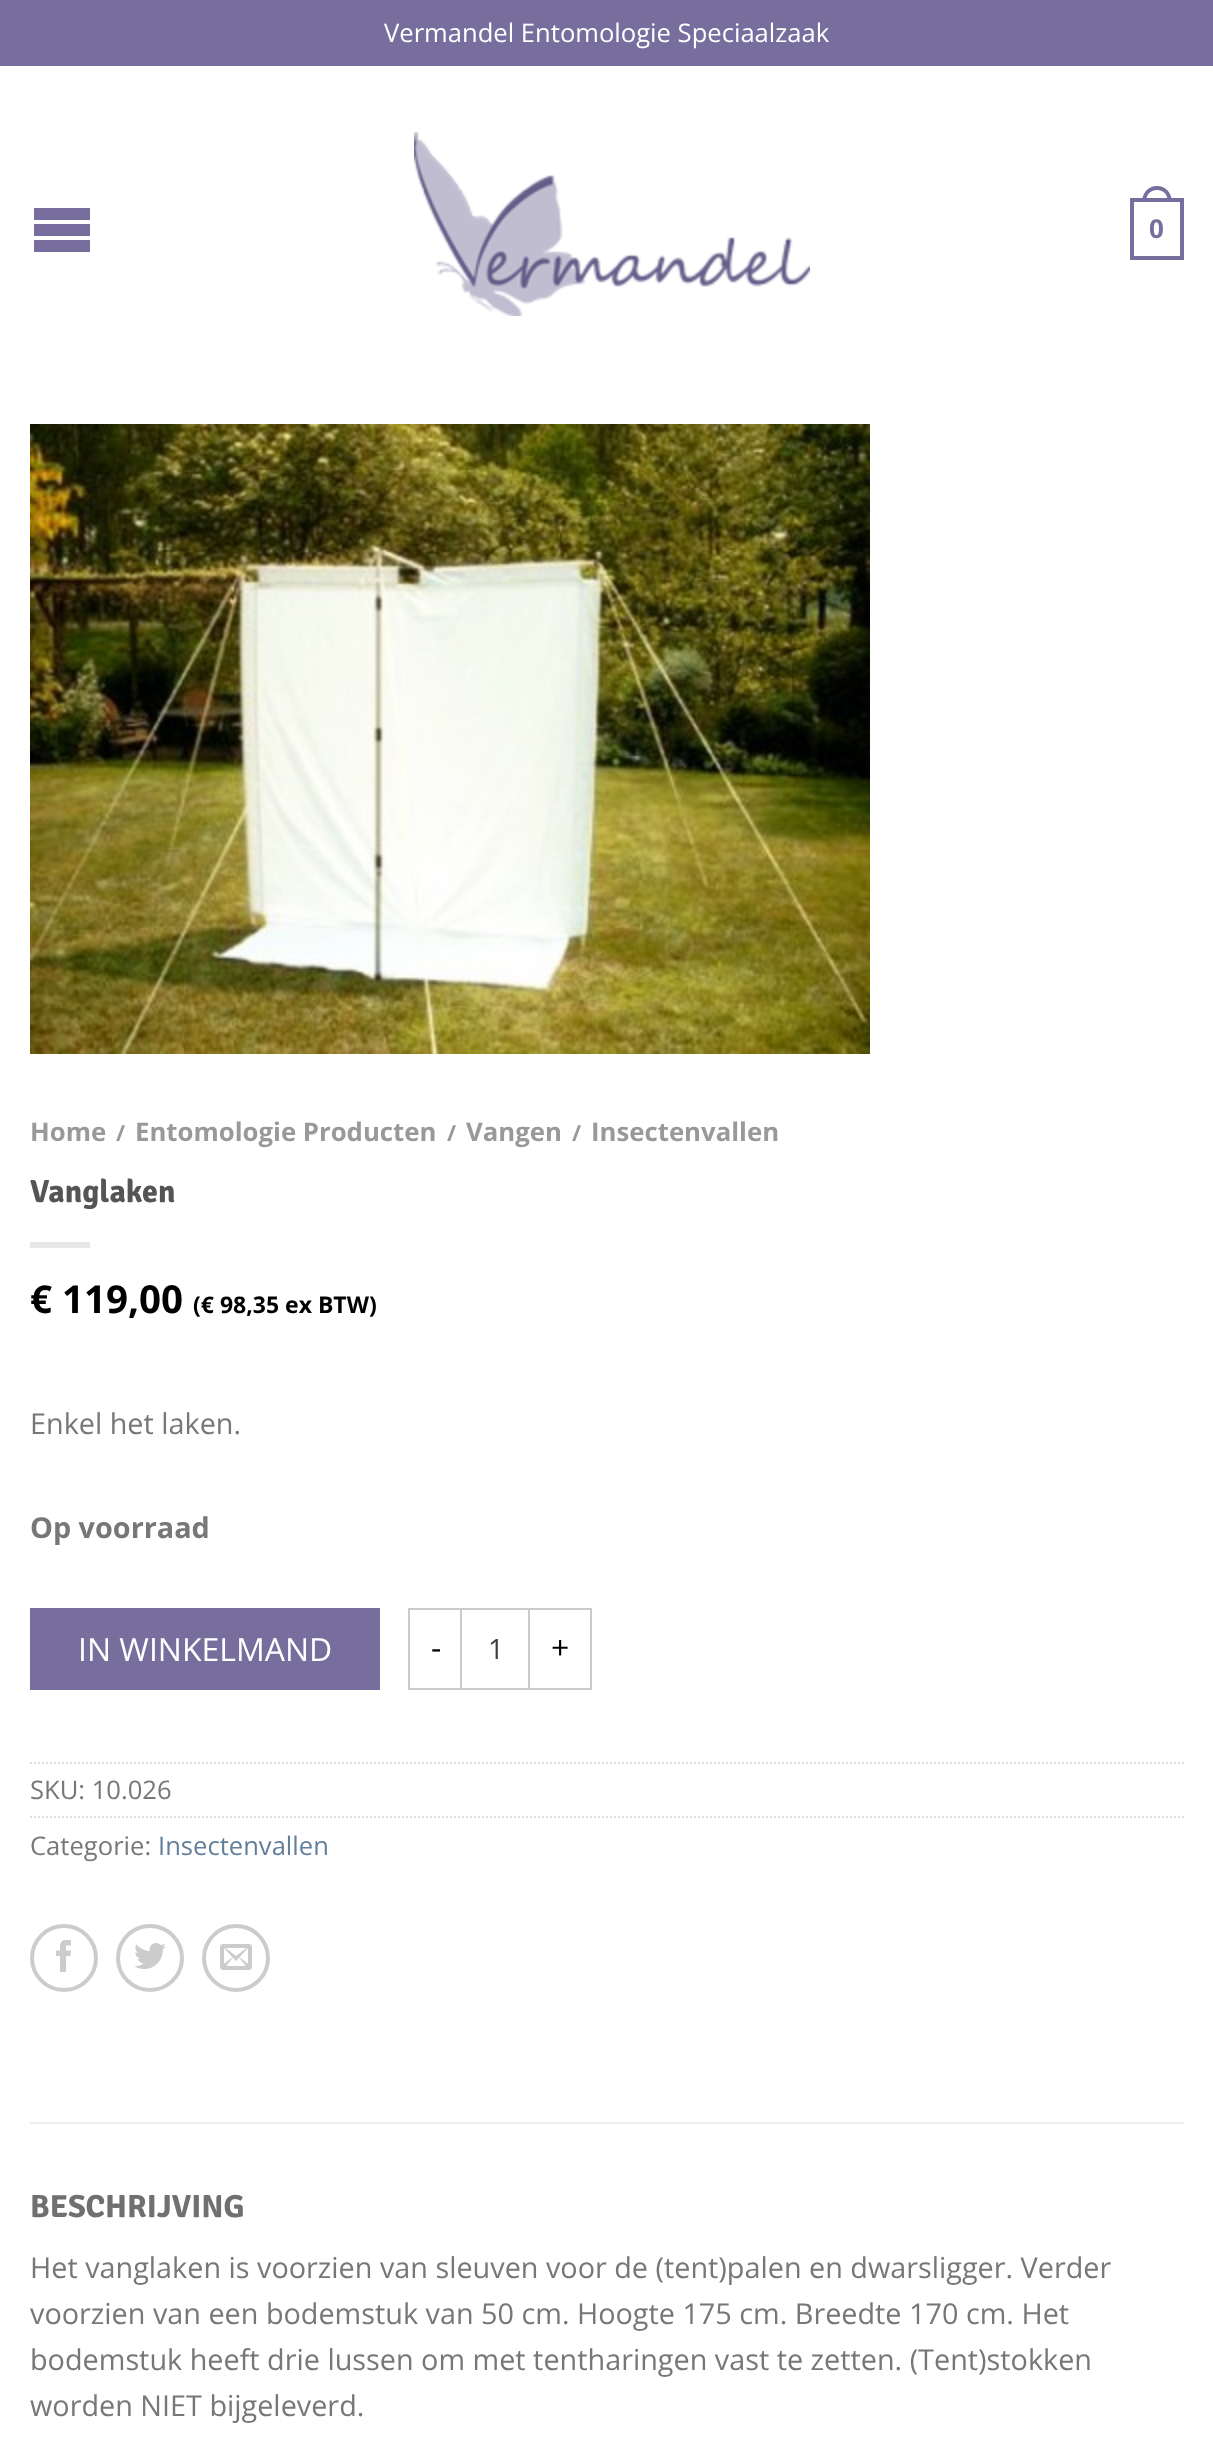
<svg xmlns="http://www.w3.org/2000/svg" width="1213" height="2437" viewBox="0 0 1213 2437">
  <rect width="100%" height="100%" fill="#ffffff"/>
  <rect x="0" y="0" width="1213" height="66" fill="#776e9e"/>
  <text x="384" y="42" font-family="Open Sans" font-size="25.6" fill="#ffffff">Vermandel Entomologie Speciaalzaak</text>
  <path d="M34 208H90V220H34ZM34 224H90V236H34ZM34 240H90V252H34Z" fill="#776e9e"/>
  <image x="414" y="132" width="396" height="184" href="img1.png"/>
  <path d="M1157 186C1166 186 1172 193.5 1172 202H1142C1142 193.5 1148 186 1157 186ZM1157 190C1164 190 1168 195.5 1168 202H1146C1146 195.5 1150 190 1157 190Z" fill="#776e9e" fill-rule="evenodd"/>
  <rect x="1132" y="200" width="50" height="58" fill="none" stroke="#776e9e" stroke-width="4"/>
  <text x="1149" y="238" font-family="Open Sans" font-size="26" font-weight="bold" fill="#776e9e">0</text>
  <image x="30" y="424" width="840" height="630" href="img2.png"/>
  <text x="30" y="1141" font-family="Open Sans" font-size="25.75" font-weight="bold" fill="#999999">Home</text>
  <text x="116" y="1141" font-family="Open Sans" font-size="22" font-weight="bold" fill="#999999">/</text>
  <text x="135" y="1141" font-family="Open Sans" font-size="25.75" font-weight="bold" fill="#999999">Entomologie Producten</text>
  <text x="447" y="1141" font-family="Open Sans" font-size="22" font-weight="bold" fill="#999999">/</text>
  <text x="466" y="1141" font-family="Open Sans" font-size="25.75" font-weight="bold" fill="#999999">Vangen</text>
  <text x="572" y="1141" font-family="Open Sans" font-size="22" font-weight="bold" fill="#999999">/</text>
  <text x="591" y="1141" font-family="Open Sans" font-size="25.75" font-weight="bold" fill="#999999">Insectenvallen</text>
  <text x="30" y="1202" font-family="Signika" font-size="32" font-weight="bold" fill="#555555">Vanglaken</text>
  <rect x="30" y="1242" width="60" height="6" fill="#e6e6e6"/>
  <text x="30" y="1313" font-family="Open Sans" font-size="38.5" font-weight="bold" fill="#000000">€ 119,00</text>
  <text x="193" y="1313" font-family="Open Sans" font-size="23" font-weight="bold" fill="#000000">(€ 98,35 ex BTW)</text>
  <text x="30" y="1434" font-family="Open Sans" font-size="28.8" fill="#777777">Enkel het laken.</text>
  <text x="30" y="1538" font-family="Open Sans" font-size="28.8" font-weight="bold" fill="#777777">Op voorraad</text>
  <rect x="30" y="1608" width="350" height="82" fill="#776e9e"/>
  <text x="78" y="1661" font-family="Open Sans" font-size="32" fill="#ffffff">IN WINKELMAND</text>
  <rect x="408" y="1608" width="52" height="2" fill="#cccccc"/>
  <rect x="408" y="1688" width="52" height="2" fill="#cccccc"/>
  <rect x="408" y="1608" width="2" height="82" fill="#cccccc"/>
  <text x="431" y="1659" font-family="Open Sans" font-size="32" fill="#000000">-</text>
  <rect x="461" y="1609" width="68" height="80" fill="none" stroke="#cccccc" stroke-width="2"/>
  <text x="488" y="1659" font-family="Open Sans" font-size="28" fill="#404040">1</text>
  <rect x="530" y="1608" width="62" height="2" fill="#cccccc"/>
  <rect x="590" y="1608" width="2" height="82" fill="#cccccc"/>
  <rect x="530" y="1688" width="62" height="2" fill="#cccccc"/>
  <text x="551" y="1659" font-family="Open Sans" font-size="32" fill="#000000">+</text>
  <path d="M30 1763H1184" fill="none" stroke="#dddddd" stroke-width="2" stroke-dasharray="2 2"/>
  <text x="30" y="1799" font-family="Open Sans" font-size="25.6" fill="#777777">SKU: 10.026</text>
  <path d="M30 1817H1184" fill="none" stroke="#dddddd" stroke-width="2" stroke-dasharray="2 2"/>
  <text x="30" y="1855" font-family="Open Sans" font-size="25.6" fill="#777777">Categorie:</text>
  <text x="158" y="1855" font-family="Open Sans" font-size="25.6" fill="#627f9a">Insectenvallen</text>
  <circle cx="64" cy="1958" r="32" fill="none" stroke="#cccccc" stroke-width="4"/>
  <image x="56" y="1940" width="15" height="32" href="img3.png"/>
  <circle cx="150" cy="1958" r="32" fill="none" stroke="#cccccc" stroke-width="4"/>
  <image x="134" y="1943" width="32" height="26" href="img4.png"/>
  <circle cx="236" cy="1958" r="32" fill="none" stroke="#cccccc" stroke-width="4"/>
  <image x="220" y="1944" width="32" height="26" href="img5.png"/>
  <rect x="30" y="2122" width="1154" height="2" fill="#eeeeee"/>
  <text x="30" y="2217" font-family="Signika" font-size="32" font-weight="bold" fill="#707070">BESCHRIJVING</text>
  <text x="30" y="2278" font-family="Open Sans" font-size="28.8" fill="#777777">Het vanglaken is voorzien van sleuven voor de (tent)palen en dwarsligger. Verder</text>
  <text x="30" y="2324" font-family="Open Sans" font-size="28.8" fill="#777777">voorzien van een bodemstuk van 50 cm. Hoogte 175 cm. Breedte 170 cm. Het</text>
  <text x="30" y="2370" font-family="Open Sans" font-size="28.8" fill="#777777">bodemstuk heeft drie lussen om met tentharingen vast te zetten. (Tent)stokken</text>
  <text x="30" y="2416" font-family="Open Sans" font-size="28.8" fill="#777777">worden NIET bijgeleverd.</text>
</svg>
